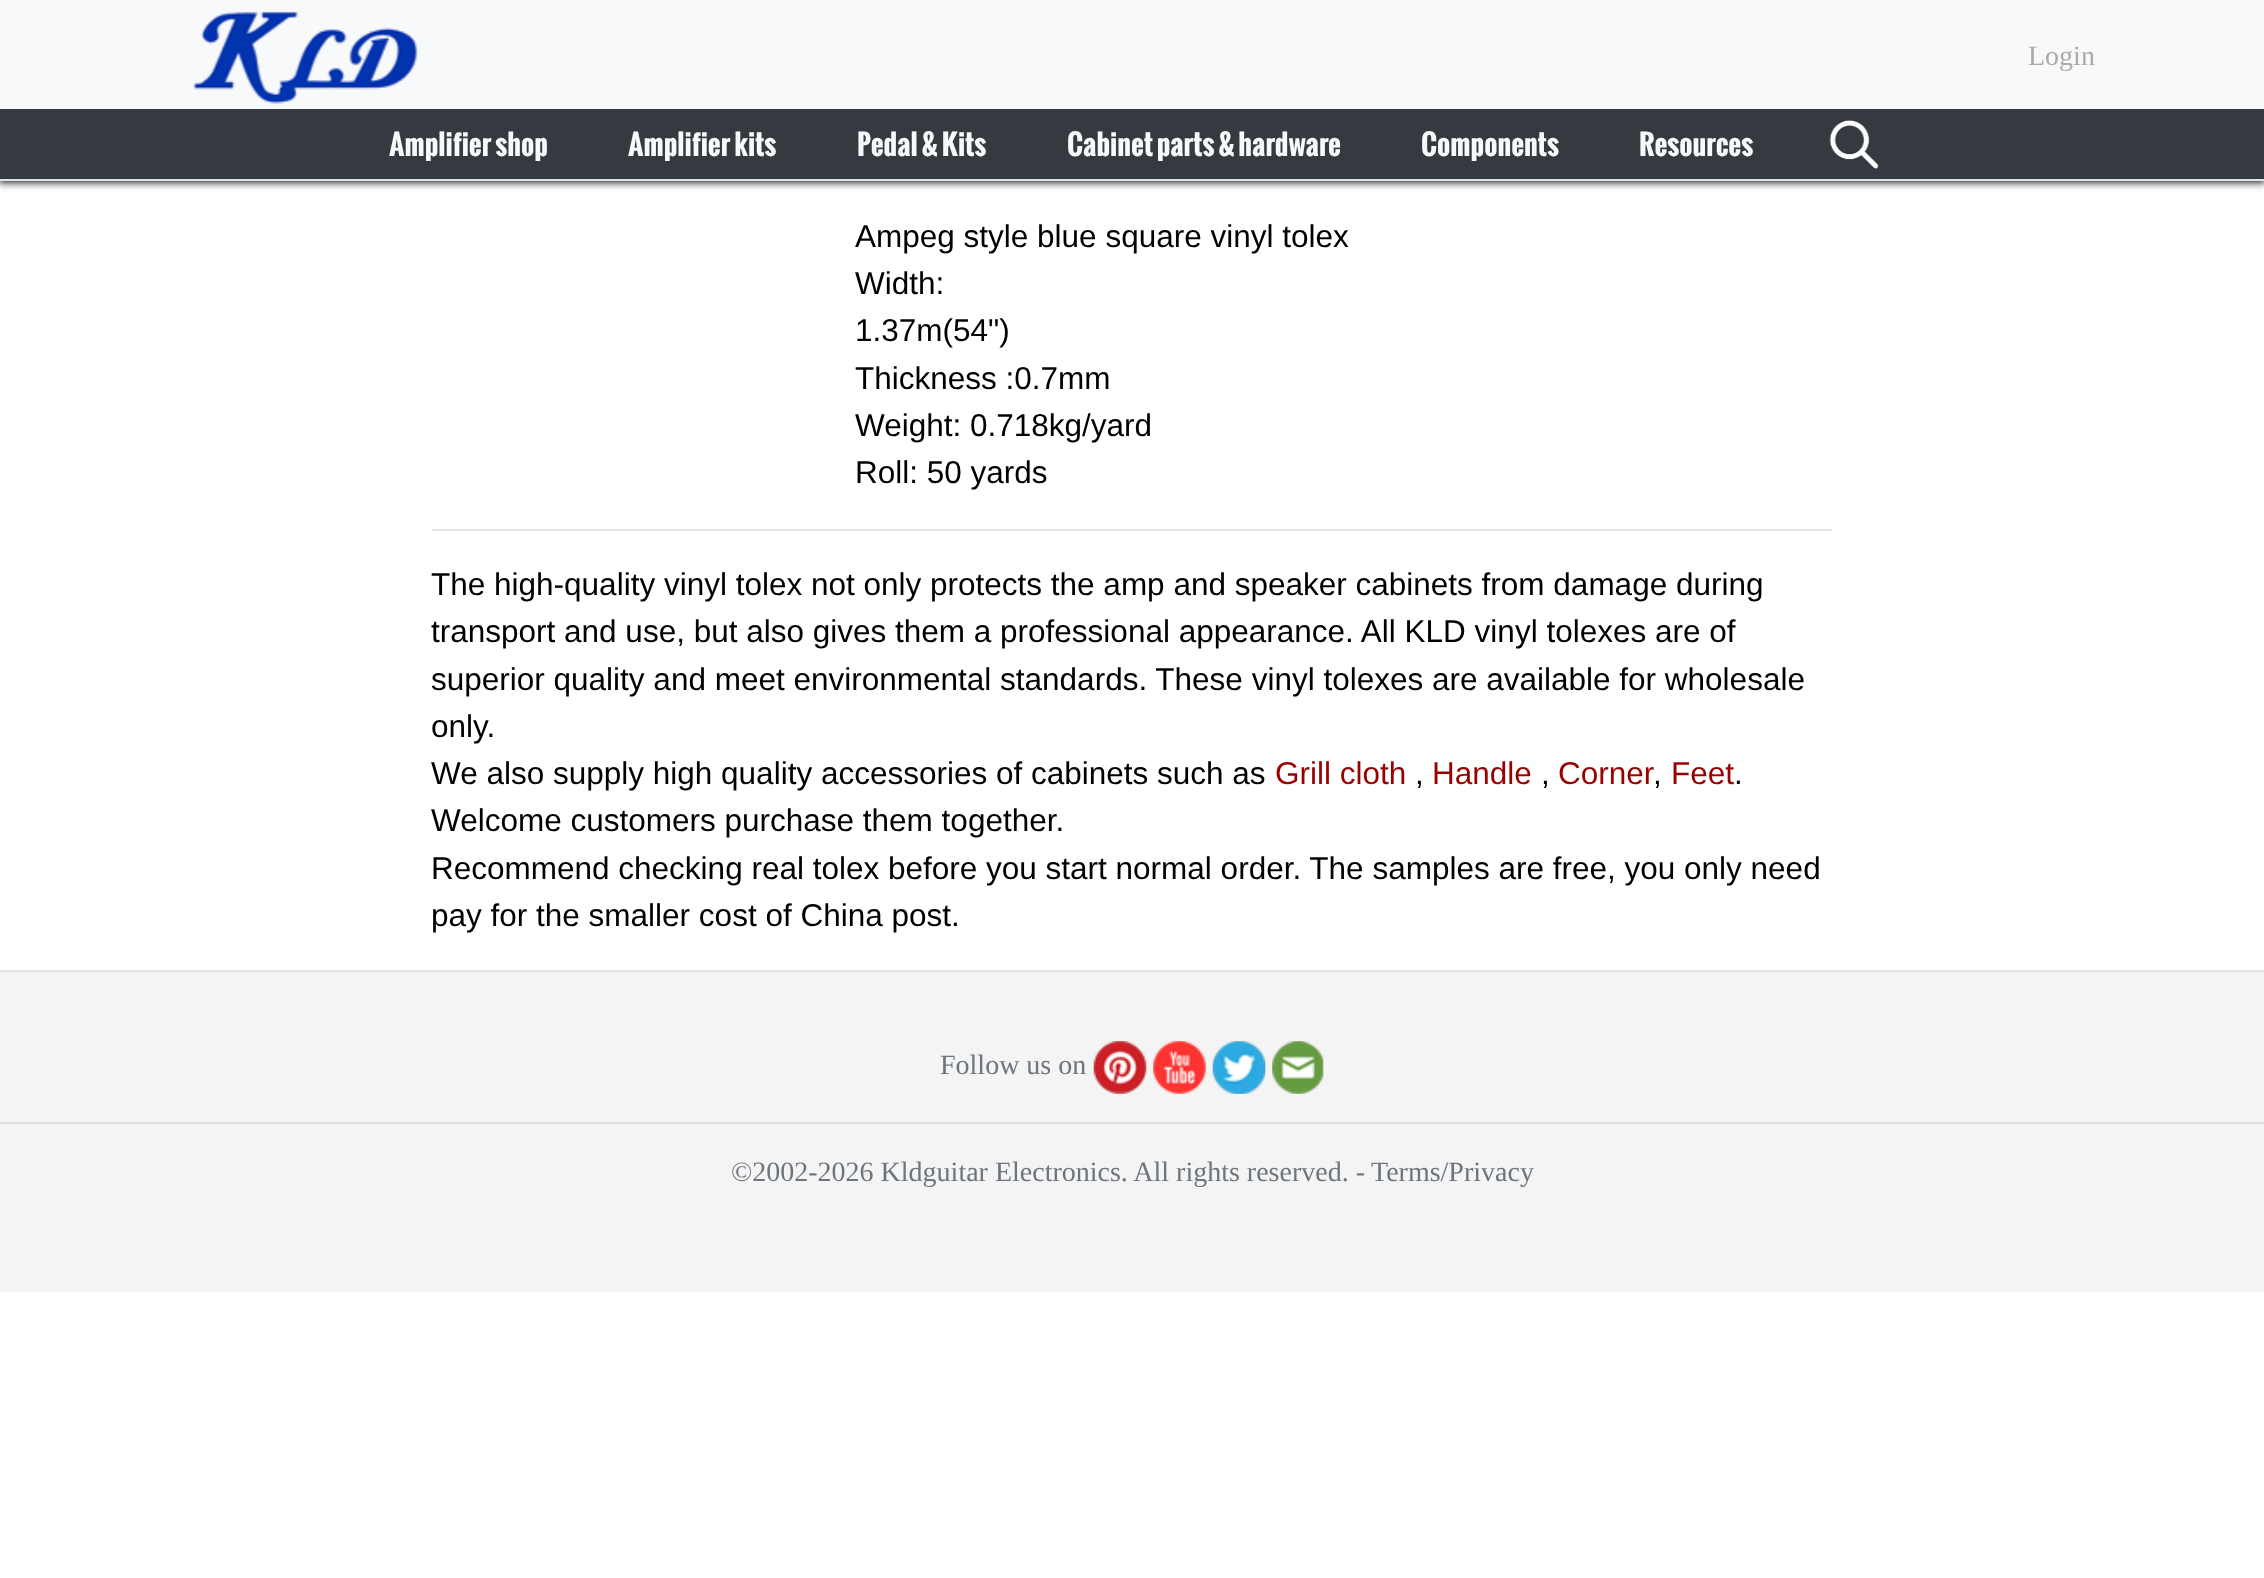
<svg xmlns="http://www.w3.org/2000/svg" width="2264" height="1578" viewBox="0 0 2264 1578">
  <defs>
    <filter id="blur1" x="-50%" y="-200%" width="200%" height="500%"><feGaussianBlur stdDeviation="4.5"/></filter>
  </defs>
  <rect width="100%" height="100%" fill="#ffffff"/>
  <rect x="-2" y="-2" width="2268" height="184" fill="#000000" filter="url(#blur1)"/>
  <rect x="0" y="0" width="2264" height="109" fill="#f8f9fa"/>
  <image x="193" y="11" width="225" height="93" href="img1.png"/>
  <text x="2028" y="65" font-family="Liberation Serif" font-size="28" fill="#aaaaaa">Login</text>
  <rect x="0" y="109" width="2264" height="70" fill="#343a40"/>
  <rect x="0" y="179" width="2264" height="2" fill="#dee2e6"/>
  <text x="389" y="156" font-family="Oswald" font-size="28" font-weight="bold" fill="#f8f9fa">Amplifier shop</text>
  <text x="628" y="156" font-family="Oswald" font-size="28" font-weight="bold" fill="#f8f9fa">Amplifier kits</text>
  <text x="857" y="156" font-family="Oswald" font-size="28" font-weight="bold" fill="#f8f9fa">Pedal &amp; Kits</text>
  <text x="1067" y="156" font-family="Oswald" font-size="28" font-weight="bold" fill="#f8f9fa">Cabinet parts &amp; hardware</text>
  <text x="1421" y="156" font-family="Oswald" font-size="28" font-weight="bold" fill="#f8f9fa">Components</text>
  <text x="1639" y="156" font-family="Oswald" font-size="28" font-weight="bold" fill="#f8f9fa">Resources</text>
  <image x="1829" y="120" width="50" height="49" href="img2.png"/>
  <text x="855" y="247" font-family="Liberation Sans" font-size="31.5" fill="#000000">Ampeg style blue square vinyl tolex</text>
  <text x="855" y="294" font-family="Liberation Sans" font-size="31.5" fill="#000000">Width:</text>
  <text x="855" y="341" font-family="Liberation Sans" font-size="31.5" fill="#000000">1.37m(54")</text>
  <text x="855" y="389" font-family="Liberation Sans" font-size="31.5" fill="#000000">Thickness :0.7mm</text>
  <text x="855" y="436" font-family="Liberation Sans" font-size="31.5" fill="#000000">Weight: 0.718kg/yard</text>
  <text x="855" y="483" font-family="Liberation Sans" font-size="31.5" fill="#000000">Roll: 50 yards</text>
  <rect x="432" y="529" width="1400" height="2" fill="#e6e6e6"/>
  <text x="431" y="595" font-family="Liberation Sans" font-size="31.5" fill="#000000">The high-quality vinyl tolex not only protects the amp and speaker cabinets from damage during</text>
  <text x="431" y="642" font-family="Liberation Sans" font-size="31.5" fill="#000000">transport and use, but also gives them a professional appearance. All KLD vinyl tolexes are of</text>
  <text x="431" y="690" font-family="Liberation Sans" font-size="31.5" fill="#000000">superior quality and meet environmental standards. These vinyl tolexes are available for wholesale</text>
  <text x="431" y="737" font-family="Liberation Sans" font-size="31.5" fill="#000000">only.</text>
  <text x="431" y="784" font-family="Liberation Sans" font-size="31.5" fill="#000000">We also supply high quality accessories of cabinets such as</text>
  <text x="1275" y="784" font-family="Liberation Sans" font-size="31.5" fill="#990000">Grill cloth</text>
  <text x="1415" y="784" font-family="Liberation Sans" font-size="31.5" fill="#000000">,</text>
  <text x="1432" y="784" font-family="Liberation Sans" font-size="31.5" fill="#990000">Handle</text>
  <text x="1541" y="784" font-family="Liberation Sans" font-size="31.5" fill="#000000">,</text>
  <text x="1558" y="784" font-family="Liberation Sans" font-size="31.5" fill="#990000">Corner</text>
  <text x="1653" y="784" font-family="Liberation Sans" font-size="31.5" fill="#000000">,</text>
  <text x="1671" y="784" font-family="Liberation Sans" font-size="31.5" fill="#990000">Feet</text>
  <text x="1734" y="784" font-family="Liberation Sans" font-size="31.5" fill="#000000">.</text>
  <text x="431" y="831" font-family="Liberation Sans" font-size="31.5" fill="#000000">Welcome customers purchase them together.</text>
  <text x="431" y="879" font-family="Liberation Sans" font-size="31.5" fill="#000000">Recommend checking real tolex before you start normal order. The samples are free, you only need</text>
  <text x="431" y="926" font-family="Liberation Sans" font-size="31.5" fill="#000000">pay for the smaller cost of China post.</text>
  <rect x="0" y="972" width="2264" height="320" fill="#f4f4f4"/>
  <rect x="0" y="970" width="2264" height="2" fill="#dee2e6"/>
  <text x="940" y="1074" font-family="Liberation Serif" font-size="28" fill="#6c757d">Follow us on</text>
  <image x="1093" y="1041" width="54" height="53" href="img3.png"/>
  <image x="1153" y="1041" width="53" height="53" href="img4.png"/>
  <image x="1212" y="1041" width="54" height="53" href="img5.png"/>
  <image x="1272" y="1041" width="52" height="53" href="img6.png"/>
  <rect x="0" y="1122" width="2264" height="2" fill="#dcdcdc"/>
  <text x="731" y="1181" font-family="Liberation Serif" font-size="28" fill="#6c757d">©2002-2026 Kldguitar Electronics. All rights reserved. -</text>
  <text x="1371" y="1181" font-family="Liberation Serif" font-size="28" fill="#6c757d">Terms/Privacy</text>
</svg>
